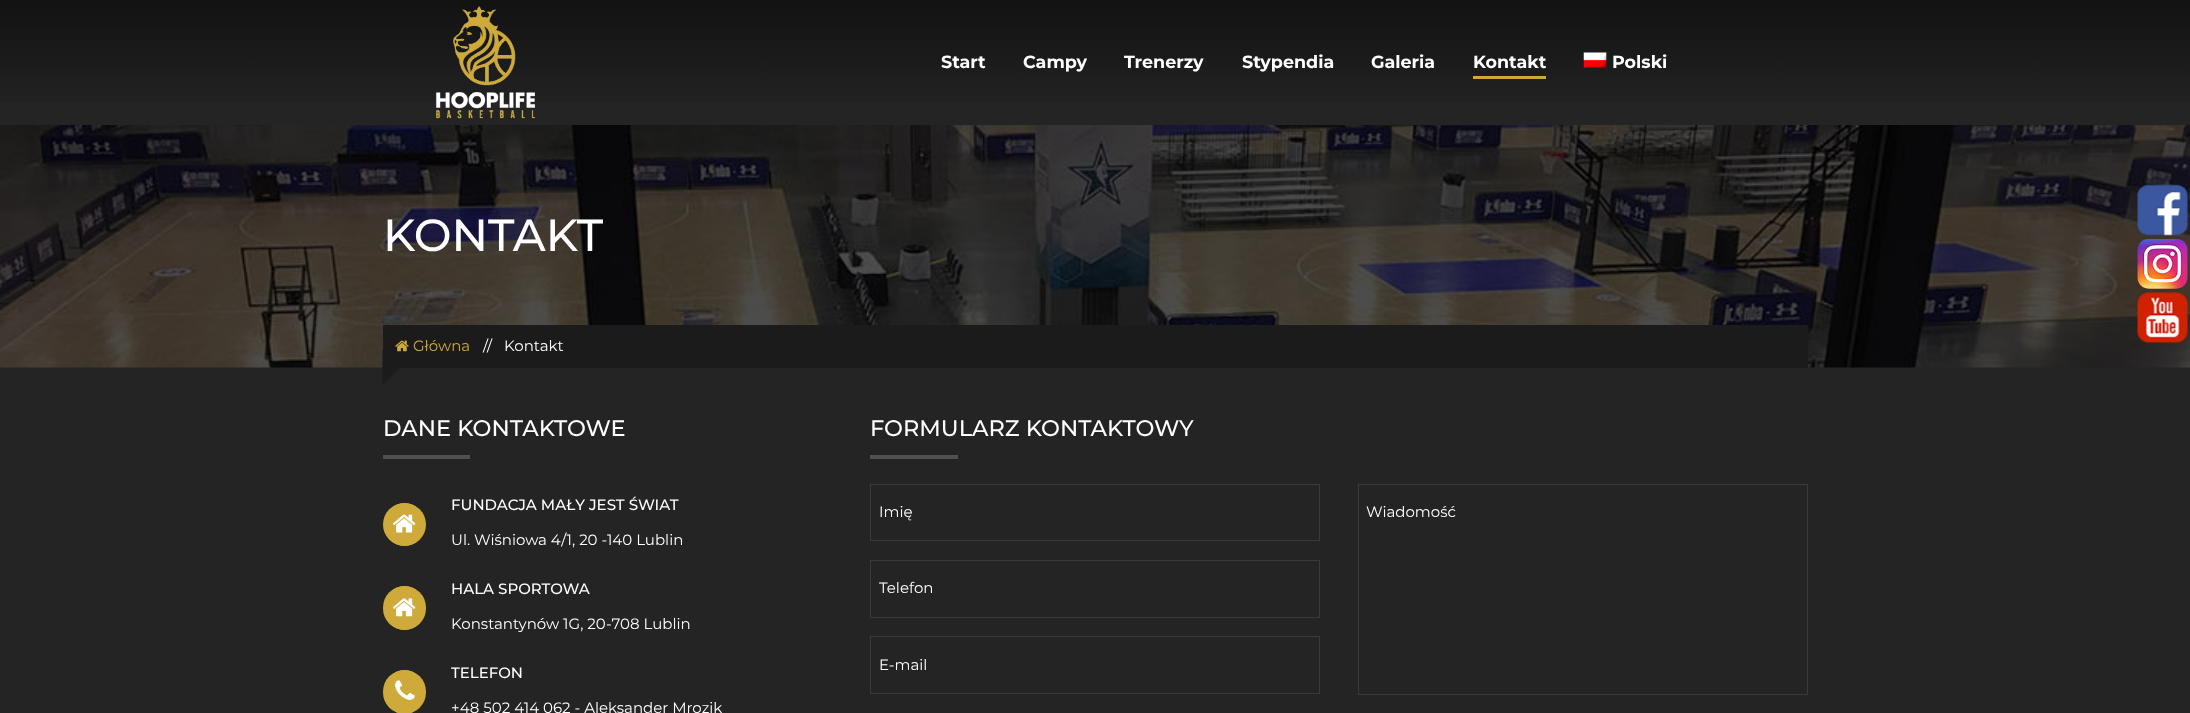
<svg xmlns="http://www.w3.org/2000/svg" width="2190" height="713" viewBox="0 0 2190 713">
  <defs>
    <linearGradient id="g1" gradientUnits="userSpaceOnUse" x1="1095" y1="0" x2="1095" y2="125"><stop offset="0" stop-color="#121212"/><stop offset="0.95" stop-color="#242424"/></linearGradient>
    <clipPath id="clip1"><rect x="383" y="503" width="43" height="43" rx="21.5"/></clipPath>
    <clipPath id="clip2"><rect x="383" y="586" width="43" height="44" rx="21.5"/></clipPath>
    <clipPath id="clip3"><rect x="383" y="670" width="43" height="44" rx="21.5"/></clipPath>
  </defs>
  <rect width="100%" height="100%" fill="#242424"/>
  <rect x="0" y="0" width="2190" height="102" fill="url(#g1)"/>
  <image x="435" y="6" width="100" height="113" href="img1.png"/>
  <text x="941" y="68" font-family="Montserrat" font-size="17.5" font-weight="bold" fill="#ffffff">Start</text>
  <text x="1023" y="68" font-family="Montserrat" font-size="17.5" font-weight="bold" fill="#ffffff">Campy</text>
  <text x="1124" y="68" font-family="Montserrat" font-size="17.5" font-weight="bold" fill="#ffffff">Trenerzy</text>
  <text x="1242" y="68" font-family="Montserrat" font-size="17.5" font-weight="bold" fill="#ffffff">Stypendia</text>
  <text x="1371" y="68" font-family="Montserrat" font-size="17.5" font-weight="bold" fill="#ffffff">Galeria</text>
  <text x="1473" y="68" font-family="Montserrat" font-size="17.5" font-weight="bold" fill="#ffffff">Kontakt</text>
  <rect x="1473" y="76" width="73" height="3" fill="#ceaa3a"/>
  <image x="1583" y="52" width="24" height="16" href="img2.png"/>
  <text x="1612" y="68" font-family="Montserrat" font-size="17.5" font-weight="bold" fill="#ffffff">Polski</text>
  <image x="0" y="125" width="2190" height="243" href="img3.png"/>
  <text x="383" y="251" font-family="Montserrat" font-size="45" font-weight="500" fill="#ffffff">KONTAKT</text>
  <rect x="383" y="325" width="1425" height="43" fill="#1b1b1b"/>
  <image x="395" y="340" width="14" height="12" href="img4.png"/>
  <text x="413" y="351" font-family="Montserrat" font-size="15" fill="#ceaa3a">Główna</text>
  <text x="483" y="351" font-family="Montserrat" font-size="15" fill="#ffffff">//</text>
  <text x="504" y="351" font-family="Montserrat" font-size="15" fill="#ffffff">Kontakt</text>
  <path d="M382.5 385V350L400 367.5Z" fill="#1b1b1b"/>
  <text x="383" y="436" font-family="Montserrat" font-size="22.5" font-weight="500" fill="#ffffff">DANE KONTAKTOWE</text>
  <rect x="383" y="455" width="87" height="4" fill="#505050"/>
  <circle cx="404.5" cy="524.5" r="21.5" fill="#ceaa3a"/>
  <g clip-path="url(#clip1)">
    <rect x="393" y="503" width="23" height="43" fill="#ceaa3a"/>
  </g>
  <image x="392" y="514" width="24" height="19" href="img5.png"/>
  <text x="451" y="510" font-family="Montserrat" font-size="15" font-weight="500" fill="#ffffff">FUNDACJA MAŁY JEST ŚWIAT</text>
  <text x="451" y="545" font-family="Montserrat" font-size="15" fill="#ffffff">Ul. Wiśniowa 4/1, 20 -140 Lublin</text>
  <rect x="383" y="586" width="43" height="44" rx="21.5" fill="#ceaa3a"/>
  <g clip-path="url(#clip2)">
    <rect x="393" y="586" width="23" height="44" fill="#ceaa3a"/>
  </g>
  <image x="392" y="598" width="24" height="19" href="img6.png"/>
  <text x="451" y="594" font-family="Montserrat" font-size="15" font-weight="500" fill="#ffffff">HALA SPORTOWA</text>
  <text x="451" y="629" font-family="Montserrat" font-size="15" fill="#ffffff">Konstantynów 1G, 20-708 Lublin</text>
  <rect x="383" y="670" width="43" height="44" rx="21.5" fill="#ceaa3a"/>
  <g clip-path="url(#clip3)">
    <rect x="395" y="670" width="19" height="43" fill="#ceaa3a"/>
  </g>
  <image x="395" y="680" width="20" height="20" href="img7.png"/>
  <text x="451" y="678" font-family="Montserrat" font-size="15" font-weight="500" fill="#ffffff">TELEFON</text>
  <text x="451" y="713" font-family="Montserrat" font-size="15" fill="#ffffff">+48 502 414 062 - Aleksander Mrozik</text>
  <text x="870" y="436" font-family="Montserrat" font-size="22.5" font-weight="500" fill="#ffffff">FORMULARZ KONTAKTOWY</text>
  <rect x="870" y="455" width="88" height="4" fill="#505050"/>
  <rect x="870.5" y="484.5" width="449" height="56" fill="none" stroke="#3a3a3a"/>
  <text x="879" y="517" font-family="Montserrat" font-size="15" fill="#ffffff">Imię</text>
  <rect x="870.5" y="560.5" width="449" height="57" fill="none" stroke="#3a3a3a"/>
  <text x="879" y="593" font-family="Montserrat" font-size="15" fill="#ffffff">Telefon</text>
  <rect x="870.5" y="636.5" width="449" height="57" fill="none" stroke="#3a3a3a"/>
  <text x="879" y="670" font-family="Montserrat" font-size="15" fill="#ffffff">E-mail</text>
  <rect x="1358.5" y="484.5" width="449" height="210" fill="none" stroke="#3a3a3a"/>
  <text x="1366" y="517" font-family="Montserrat" font-size="15" fill="#ffffff">Wiadomość</text>
  <image x="2137" y="184" width="51" height="52" href="img8.png"/>
  <image x="2137" y="238" width="51" height="51" href="img9.png"/>
  <image x="2137" y="292" width="51" height="52" href="img10.png"/>
</svg>
